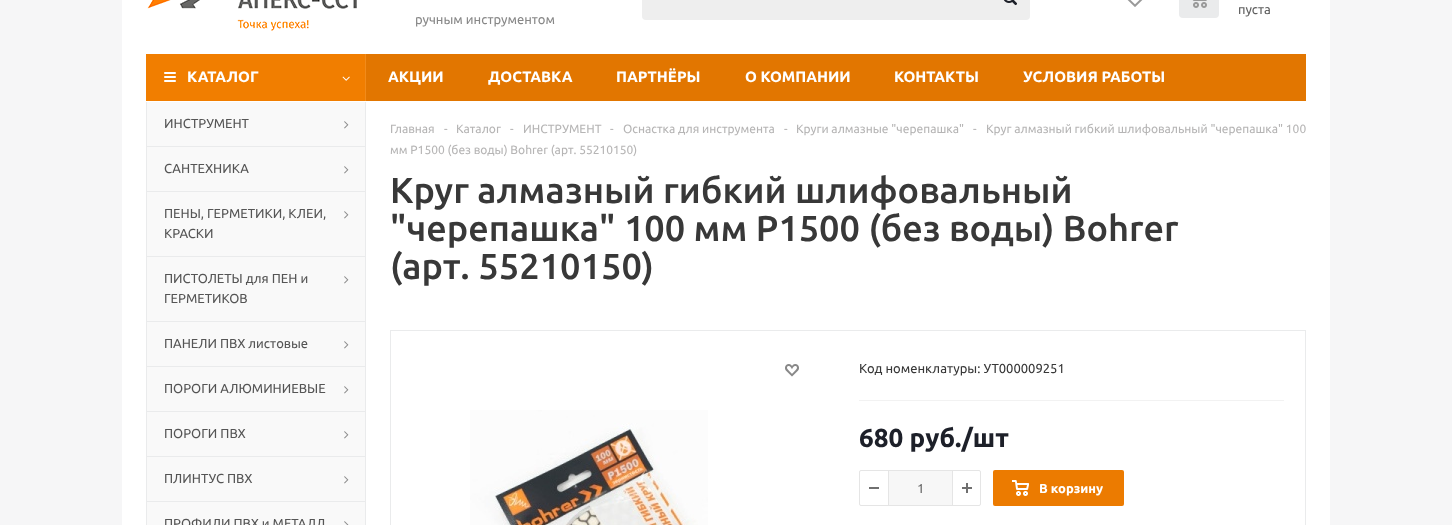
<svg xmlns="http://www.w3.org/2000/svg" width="1452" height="525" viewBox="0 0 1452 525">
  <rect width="100%" height="100%" fill="#f6f6f7"/>
  <rect x="122" y="0" width="1208" height="525" fill="#ffffff"/>
  <image x="147" y="0" width="210" height="31" href="img1.png"/>
  <rect x="642" y="-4" width="388" height="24" rx="4" fill="#eeeeee"/>
  <image x="1003" y="0" width="14" height="6" href="img2.png"/>
  <image x="1127" y="0" width="16" height="7" href="img3.png"/>
  <rect x="1179" y="-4" width="40" height="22" rx="4" fill="#eaebec"/>
  <image x="1192" y="0" width="15" height="8" href="img4.png"/>
  <text x="1238" y="14" font-family="Ubuntu" font-size="13" fill="#5f5f5f">пуста</text>
  <text x="415" y="24" font-family="Ubuntu" font-size="13" fill="#888888">ручным инструментом</text>
  <rect x="366" y="54" width="940" height="47" fill="#e27600"/>
  <rect x="146" y="54" width="219" height="47" fill="#f17e00"/>
  <image x="164" y="72" width="12" height="10" href="img5.png"/>
  <text x="187" y="82" font-family="Ubuntu" font-size="15" font-weight="bold" fill="#ffffff">КАТАЛОГ</text>
  <rect x="365" y="54" width="1" height="47" fill="#f28b1a"/>
  <image x="342" y="76" width="8" height="5" href="img6.png"/>
  <text x="388" y="82" font-family="Ubuntu" font-size="15" font-weight="bold" fill="#ffffff">АКЦИИ</text>
  <text x="488" y="82" font-family="Ubuntu" font-size="15" font-weight="bold" fill="#ffffff">ДОСТАВКА</text>
  <text x="616" y="82" font-family="Ubuntu" font-size="15" font-weight="bold" fill="#ffffff">ПАРТНЁРЫ</text>
  <text x="745" y="82" font-family="Ubuntu" font-size="15" font-weight="bold" fill="#ffffff">О КОМПАНИИ</text>
  <text x="894" y="82" font-family="Ubuntu" font-size="15" font-weight="bold" fill="#ffffff">КОНТАКТЫ</text>
  <text x="1023" y="82" font-family="Ubuntu" font-size="15" font-weight="bold" fill="#ffffff">УСЛОВИЯ РАБОТЫ</text>
  <rect x="147" y="102" width="218" height="44" fill="#f9f9f9"/>
  <rect x="365" y="102" width="1" height="44" fill="#eaebec"/>
  <rect x="146" y="102" width="1" height="44" fill="#eaebec"/>
  <text x="164" y="128" font-family="Ubuntu" font-size="13" fill="#555555">ИНСТРУМЕНТ</text>
  <image x="344" y="121" width="5" height="8" href="img7.png"/>
  <rect x="147" y="147" width="218" height="44" fill="#f9f9f9"/>
  <rect x="146" y="146" width="220" height="1" fill="#eaebec"/>
  <rect x="365" y="146" width="1" height="45" fill="#eaebec"/>
  <rect x="146" y="146" width="1" height="45" fill="#eaebec"/>
  <text x="164" y="173" font-family="Ubuntu" font-size="13" fill="#555555">САНТЕХНИКА</text>
  <image x="344" y="166" width="5" height="8" href="img7.png"/>
  <rect x="147" y="192" width="218" height="64" fill="#f9f9f9"/>
  <rect x="146" y="191" width="220" height="1" fill="#eaebec"/>
  <rect x="365" y="191" width="1" height="65" fill="#eaebec"/>
  <rect x="146" y="191" width="1" height="65" fill="#eaebec"/>
  <text x="164" y="218" font-family="Ubuntu" font-size="13" fill="#555555">ПЕНЫ, ГЕРМЕТИКИ, КЛЕИ,</text>
  <image x="344" y="211" width="5" height="8" href="img7.png"/>
  <text x="164" y="238" font-family="Ubuntu" font-size="13" fill="#555555">КРАСКИ</text>
  <rect x="147" y="257" width="218" height="64" fill="#f9f9f9"/>
  <rect x="146" y="256" width="220" height="1" fill="#eaebec"/>
  <rect x="365" y="256" width="1" height="65" fill="#eaebec"/>
  <rect x="146" y="256" width="1" height="65" fill="#eaebec"/>
  <text x="164" y="283" font-family="Ubuntu" font-size="13" fill="#555555">ПИСТОЛЕТЫ для ПЕН и</text>
  <image x="344" y="276" width="5" height="8" href="img7.png"/>
  <text x="164" y="303" font-family="Ubuntu" font-size="13" fill="#555555">ГЕРМЕТИКОВ</text>
  <rect x="147" y="322" width="218" height="44" fill="#f9f9f9"/>
  <rect x="146" y="321" width="220" height="1" fill="#eaebec"/>
  <rect x="365" y="321" width="1" height="45" fill="#eaebec"/>
  <rect x="146" y="321" width="1" height="45" fill="#eaebec"/>
  <text x="164" y="348" font-family="Ubuntu" font-size="13" fill="#555555">ПАНЕЛИ ПВХ листовые</text>
  <image x="344" y="341" width="5" height="8" href="img7.png"/>
  <rect x="147" y="367" width="218" height="44" fill="#f9f9f9"/>
  <rect x="146" y="366" width="220" height="1" fill="#eaebec"/>
  <rect x="365" y="366" width="1" height="45" fill="#eaebec"/>
  <rect x="146" y="366" width="1" height="45" fill="#eaebec"/>
  <text x="164" y="393" font-family="Ubuntu" font-size="13" fill="#555555">ПОРОГИ АЛЮМИНИЕВЫЕ</text>
  <image x="344" y="386" width="5" height="8" href="img7.png"/>
  <rect x="147" y="412" width="218" height="44" fill="#f9f9f9"/>
  <rect x="146" y="411" width="220" height="1" fill="#eaebec"/>
  <rect x="365" y="411" width="1" height="45" fill="#eaebec"/>
  <rect x="146" y="411" width="1" height="45" fill="#eaebec"/>
  <text x="164" y="438" font-family="Ubuntu" font-size="13" fill="#555555">ПОРОГИ ПВХ</text>
  <image x="344" y="431" width="5" height="8" href="img7.png"/>
  <rect x="147" y="457" width="218" height="44" fill="#f9f9f9"/>
  <rect x="146" y="456" width="220" height="1" fill="#eaebec"/>
  <rect x="365" y="456" width="1" height="45" fill="#eaebec"/>
  <rect x="146" y="456" width="1" height="45" fill="#eaebec"/>
  <text x="164" y="483" font-family="Ubuntu" font-size="13" fill="#555555">ПЛИНТУС ПВХ</text>
  <image x="344" y="476" width="5" height="8" href="img7.png"/>
  <rect x="147" y="502" width="218" height="23" fill="#f9f9f9"/>
  <rect x="146" y="501" width="220" height="1" fill="#eaebec"/>
  <rect x="365" y="501" width="1" height="24" fill="#eaebec"/>
  <rect x="146" y="501" width="1" height="24" fill="#eaebec"/>
  <text x="164" y="528" font-family="Ubuntu" font-size="13" fill="#555555">ПРОФИЛИ ПВХ и МЕТАЛЛ</text>
  <image x="344" y="521" width="5" height="4" href="img8.png"/>
  <text x="390" y="133" font-family="Ubuntu" font-size="12" fill="#b6b5b5">Главная</text>
  <text x="444" y="133" font-family="Ubuntu" font-size="12" fill="#b6b5b5">-</text>
  <text x="456" y="133" font-family="Ubuntu" font-size="12" fill="#b6b5b5">Каталог</text>
  <text x="510" y="133" font-family="Ubuntu" font-size="12" fill="#b6b5b5">-</text>
  <text x="523" y="133" font-family="Ubuntu" font-size="12" fill="#b6b5b5">ИНСТРУМЕНТ</text>
  <text x="610" y="133" font-family="Ubuntu" font-size="12" fill="#b6b5b5">-</text>
  <text x="623" y="133" font-family="Ubuntu" font-size="12" fill="#b6b5b5">Оснастка для инструмента</text>
  <text x="784" y="133" font-family="Ubuntu" font-size="12" fill="#b6b5b5">-</text>
  <text x="796" y="133" font-family="Ubuntu" font-size="12" fill="#b6b5b5">Круги алмазные "черепашка"</text>
  <text x="973" y="133" font-family="Ubuntu" font-size="12" fill="#b6b5b5">-</text>
  <text x="986" y="133" font-family="Ubuntu" font-size="12" fill="#b6b5b5">Круг алмазный гибкий шлифовальный "черепашка" 100</text>
  <text x="390" y="154" font-family="Ubuntu" font-size="12" fill="#b6b5b5">мм P1500 (без воды) Bohrer (арт. 55210150)</text>
  <text x="390" y="203" font-family="Ubuntu" font-size="36" font-weight="500" fill="#383838">Круг алмазный гибкий шлифовальный</text>
  <text x="390" y="241" font-family="Ubuntu" font-size="36" font-weight="500" fill="#383838">"черепашка" 100 мм P1500 (без воды) Bohrer</text>
  <text x="390" y="279" font-family="Ubuntu" font-size="36" font-weight="500" fill="#383838">(арт. 55210150)</text>
  <rect x="390.5" y="330.5" width="915" height="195" fill="none" stroke="#eaebec"/>
  <image x="785" y="364" width="14" height="13" href="img9.png"/>
  <image x="470" y="410" width="238" height="115" href="img10.png"/>
  <rect x="859" y="400" width="425" height="1" fill="#f2f2f2"/>
  <text x="859" y="373" font-family="Ubuntu" font-size="13" fill="#383838">Код номенклатуры: УТ000009251</text>
  <text x="859" y="447" font-family="Ubuntu" font-size="26" font-weight="bold" fill="#1d2029">680 руб./шт</text>
  <rect x="859.5" y="470.5" width="121" height="35" rx="1.5" fill="none" stroke="#e5e5e5"/>
  <rect x="869" y="487" width="10" height="2" fill="#707070"/>
  <rect x="889" y="471" width="63" height="34" fill="#f7f7f7"/>
  <rect x="952" y="471" width="1" height="34" fill="#e5e5e5"/>
  <rect x="888" y="471" width="1" height="34" fill="#e5e5e5"/>
  <text x="917" y="493" font-family="Ubuntu" font-size="13" fill="#666666">1</text>
  <image x="962" y="483" width="10" height="10" href="img11.png"/>
  <rect x="993" y="470" width="131" height="36" rx="2" fill="#ec7b00"/>
  <image x="1012" y="480" width="17" height="16" href="img12.png"/>
  <text x="1039" y="493" font-family="Ubuntu" font-size="13" font-weight="bold" fill="#ffffff">В корзину</text>
</svg>
